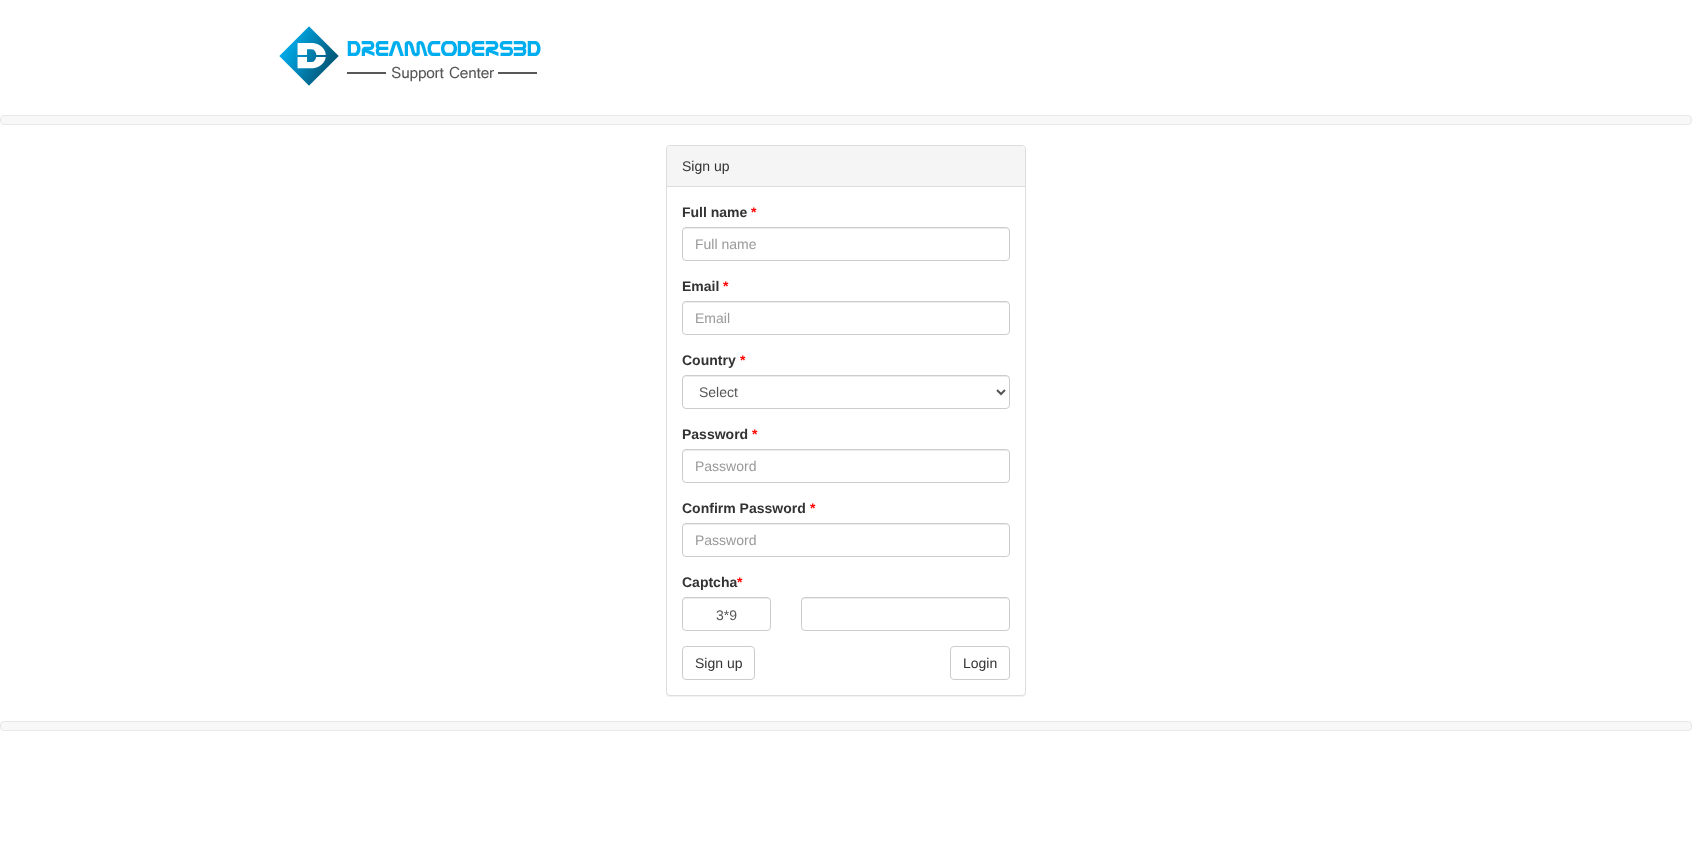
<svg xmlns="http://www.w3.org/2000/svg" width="1692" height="852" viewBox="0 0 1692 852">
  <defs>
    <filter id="blur1" x="-50%" y="-200%" width="200%" height="500%"><feGaussianBlur stdDeviation="0.5"/></filter>
  </defs>
  <rect width="100%" height="100%" fill="#ffffff"/>
  <image x="279" y="26" width="262" height="60" href="img1.png"/>
  <rect x="0.5" y="115.5" width="1691" height="9" rx="3.5" fill="#f8f8f8" stroke="#e7e7e7"/>
  <rect x="666" y="146" width="360" height="551" rx="4" fill="#000000" fill-opacity="0.05" filter="url(#blur1)"/>
  <rect x="666.5" y="145.5" width="359" height="550" rx="3.5" fill="#ffffff" stroke="#dddddd"/>
  <path d="M670 146H1022C1023.5 146 1025 147.5 1025 149V187H667V149C667 147.5 668.5 146 670 146Z" fill="#f5f5f5"/>
  <rect x="667" y="186" width="358" height="1" fill="#dddddd"/>
  <text x="682" y="171" font-family="Liberation Sans" font-size="14" fill="#333333">Sign up</text>
  <text x="682" y="217" font-family="Liberation Sans" font-size="14" font-weight="bold" fill="#333333">Full name</text>
  <text x="751" y="217" font-family="Liberation Sans" font-size="14" font-weight="bold" fill="#ff0000">*</text>
  <path d="M686 229H1006C1008 229 1009 230 1009 232C1009 230 1008 228 1006 228H686C684 228 683 230 683 232C683 230 684 229 686 229Z" fill="#ececec"/>
  <rect x="682.5" y="227.5" width="327" height="33" rx="3.5" fill="none" stroke="#cccccc"/>
  <text x="695" y="249" font-family="Liberation Sans" font-size="14" fill="#999999">Full name</text>
  <text x="682" y="291" font-family="Liberation Sans" font-size="14" font-weight="bold" fill="#333333">Email</text>
  <text x="723" y="291" font-family="Liberation Sans" font-size="14" font-weight="bold" fill="#ff0000">*</text>
  <path d="M686 303H1006C1008 303 1009 304 1009 306C1009 304 1008 302 1006 302H686C684 302 683 304 683 306C683 304 684 303 686 303Z" fill="#ececec"/>
  <rect x="682.5" y="301.5" width="327" height="33" rx="3.5" fill="none" stroke="#cccccc"/>
  <text x="695" y="323" font-family="Liberation Sans" font-size="14" fill="#999999">Email</text>
  <text x="682" y="365" font-family="Liberation Sans" font-size="14" font-weight="bold" fill="#333333">Country</text>
  <text x="740" y="365" font-family="Liberation Sans" font-size="14" font-weight="bold" fill="#ff0000">*</text>
  <path d="M686 377H1006C1008 377 1009 378 1009 380C1009 378 1008 376 1006 376H686C684 376 683 378 683 380C683 378 684 377 686 377Z" fill="#ececec"/>
  <rect x="682.5" y="375.5" width="327" height="33" rx="3.5" fill="none" stroke="#cccccc"/>
  <path d="M997 390L1001 394L1005 390" fill="none" stroke="#555555" stroke-width="2"/>
  <text x="699" y="397" font-family="Liberation Sans" font-size="14" fill="#555555">Select</text>
  <text x="682" y="439" font-family="Liberation Sans" font-size="14" font-weight="bold" fill="#333333">Password</text>
  <text x="752" y="439" font-family="Liberation Sans" font-size="14" font-weight="bold" fill="#ff0000">*</text>
  <path d="M686 451H1006C1008 451 1009 452 1009 454C1009 452 1008 450 1006 450H686C684 450 683 452 683 454C683 452 684 451 686 451Z" fill="#ececec"/>
  <rect x="682.5" y="449.5" width="327" height="33" rx="3.5" fill="none" stroke="#cccccc"/>
  <text x="695" y="471" font-family="Liberation Sans" font-size="14" fill="#999999">Password</text>
  <text x="682" y="513" font-family="Liberation Sans" font-size="14" font-weight="bold" fill="#333333">Confirm Password</text>
  <text x="810" y="513" font-family="Liberation Sans" font-size="14" font-weight="bold" fill="#ff0000">*</text>
  <path d="M686 525H1006C1008 525 1009 526 1009 528C1009 526 1008 524 1006 524H686C684 524 683 526 683 528C683 526 684 525 686 525Z" fill="#ececec"/>
  <rect x="682.5" y="523.5" width="327" height="33" rx="3.5" fill="none" stroke="#cccccc"/>
  <text x="695" y="545" font-family="Liberation Sans" font-size="14" fill="#999999">Password</text>
  <text x="682" y="587" font-family="Liberation Sans" font-size="14" font-weight="bold" fill="#333333">Captcha</text>
  <text x="737" y="587" font-family="Liberation Sans" font-size="14" font-weight="bold" fill="#ff0000">*</text>
  <path d="M686 599H767C769 599 770 600 770 602C770 594 757 598 754 598H700C696 598 683 594 683 602C683 600 684 599 686 599Z" fill="#ececec"/>
  <rect x="682.5" y="597.5" width="88" height="33" rx="3.5" fill="none" stroke="#cccccc"/>
  <text x="716" y="620" font-family="Liberation Sans" font-size="14" fill="#555555">3*9</text>
  <path d="M805 599H1006C1008 599 1009 600 1009 602C1009 600 1008 598 1006 598H804C802 599 802 600 802 602C802 600 803 599 805 599Z" fill="#ececec"/>
  <rect x="801.5" y="597.5" width="208" height="33" rx="3.5" fill="none" stroke="#cccccc"/>
  <rect x="682.5" y="646.5" width="72" height="33" rx="3.5" fill="none" stroke="#cccccc"/>
  <text x="695" y="668" font-family="Liberation Sans" font-size="14" fill="#333333">Sign up</text>
  <rect x="950.5" y="646.5" width="59" height="33" rx="3.5" fill="none" stroke="#cccccc"/>
  <text x="963" y="668" font-family="Liberation Sans" font-size="14" fill="#333333">Login</text>
  <rect x="0.5" y="721.5" width="1691" height="9" rx="3.5" fill="#f8f8f8" stroke="#e7e7e7"/>
</svg>
